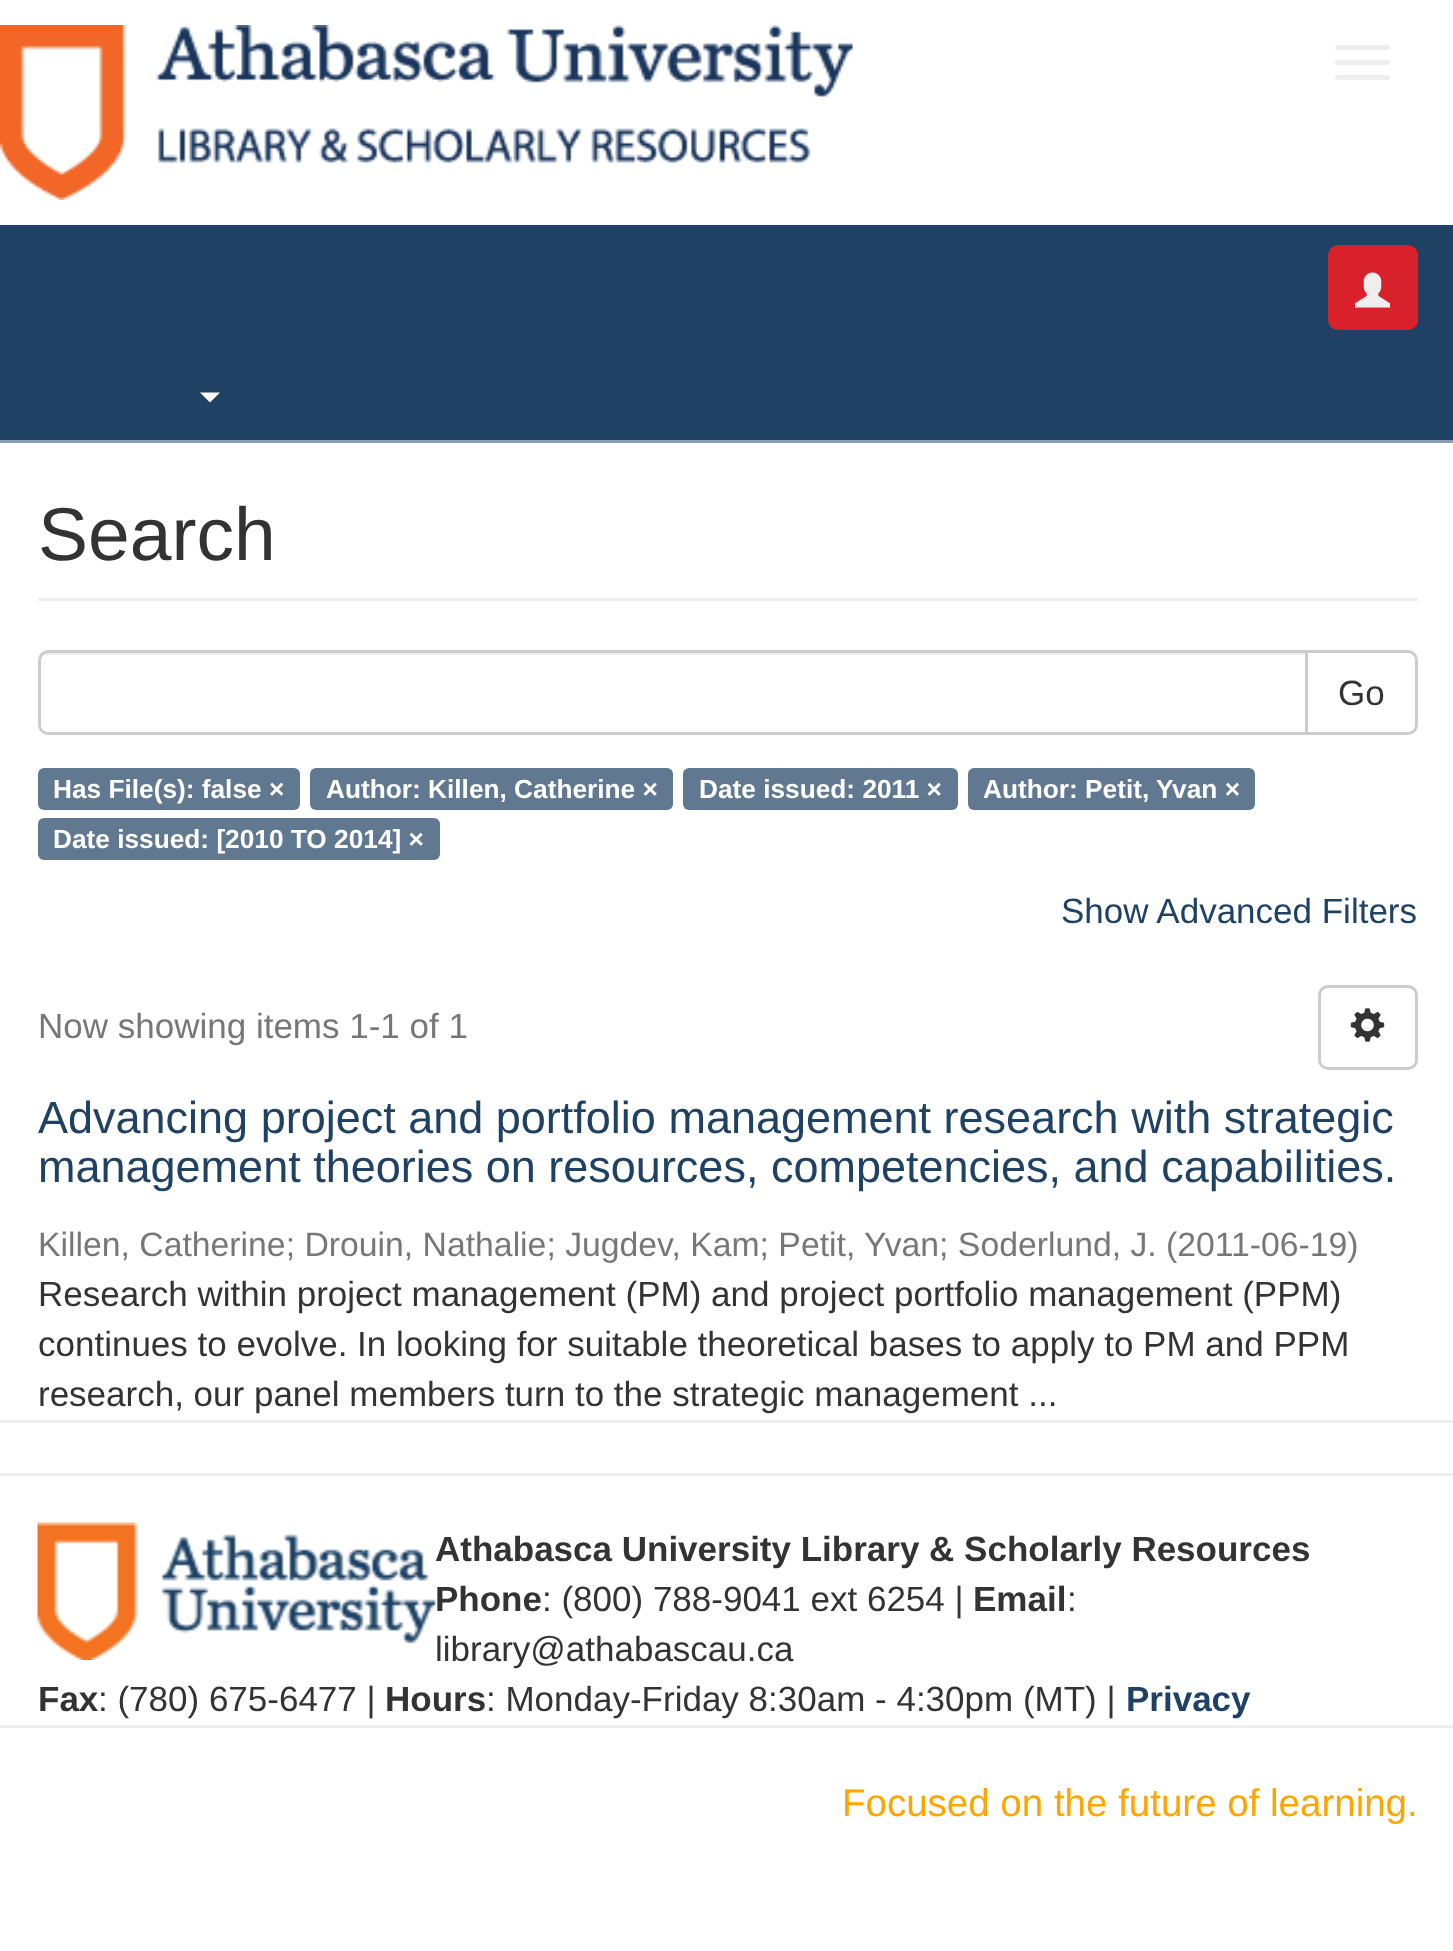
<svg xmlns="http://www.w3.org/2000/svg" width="1453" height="1951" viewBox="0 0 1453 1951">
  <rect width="100%" height="100%" fill="#ffffff"/>
  <image x="0" y="25" width="853" height="175" href="img1.png"/>
  <rect x="1335" y="45" width="55" height="5" rx="2.5" fill="#eeeeee"/>
  <rect x="1335" y="60" width="55" height="5" rx="2.5" fill="#eeeeee"/>
  <rect x="1335" y="75" width="55" height="5" rx="2.5" fill="#eeeeee"/>
  <rect x="0" y="225" width="1453" height="215" fill="#1e4164"/>
  <rect x="1328" y="245" width="90" height="85" rx="10" fill="#d8212a"/>
  <image x="1355" y="272" width="35" height="36" href="img2.png"/>
  <rect x="0" y="440" width="1453" height="3" fill="#8b9eb2"/>
  <path d="M200 392.5H220L210 402.5Z" fill="#ffffff"/>
  <rect x="38" y="598" width="1380" height="3" fill="#eeeeee"/>
  <text x="38" y="560" font-family="Liberation Sans" font-size="75" fill="#333333">Search</text>
  <path d="M1306.5 651.5H1408C1412.5 651.5 1416.5 655.5 1416.5 660V725C1416.5 729.5 1412.5 733.5 1408 733.5H1306.5Z" fill="none" stroke="#cccccc" stroke-width="3"/>
  <path d="M48 650H1308V735H48C42.5 735 38 730.5 38 725V660C38 654.5 42.5 650 48 650Z" fill="#ffffff"/>
  <path d="M48 655H1305V653H48C43 653 40 657 40 662C40 658 43 655 48 655Z" fill="#ececec"/>
  <path d="M48 651.5H1306.5V733.5H48C43.5 733.5 39.5 729.5 39.5 725V660C39.5 655.5 43.5 651.5 48 651.5Z" fill="none" stroke="#cccccc" stroke-width="3"/>
  <text x="1338" y="705" font-family="Liberation Sans" font-size="35" fill="#333333">Go</text>
  <rect x="38" y="768" width="262" height="42" rx="6" fill="#607890"/>
  <text x="53" y="798" font-family="Liberation Sans" font-size="26.25" font-weight="bold" fill="#ffffff">Has File(s): false ×</text>
  <rect x="310" y="768" width="363" height="42" rx="6" fill="#607890"/>
  <text x="326" y="798" font-family="Liberation Sans" font-size="26.25" font-weight="bold" fill="#ffffff">Author: Killen, Catherine ×</text>
  <rect x="683" y="768" width="275" height="42" rx="6" fill="#607890"/>
  <text x="699" y="798" font-family="Liberation Sans" font-size="26.25" font-weight="bold" fill="#ffffff">Date issued: 2011 ×</text>
  <rect x="968" y="768" width="287" height="42" rx="6" fill="#607890"/>
  <text x="983" y="798" font-family="Liberation Sans" font-size="26.25" font-weight="bold" fill="#ffffff">Author: Petit, Yvan ×</text>
  <rect x="38" y="818" width="402" height="42" rx="6" fill="#607890"/>
  <text x="53" y="848" font-family="Liberation Sans" font-size="26.25" font-weight="bold" fill="#ffffff">Date issued: [2010 TO 2014] ×</text>
  <text x="1061" y="923" font-family="Liberation Sans" font-size="35" fill="#1e4164">Show Advanced Filters</text>
  <text x="38" y="1038" font-family="Liberation Sans" font-size="35" fill="#777777">Now showing items 1-1 of 1</text>
  <rect x="1319.5" y="986.5" width="97" height="82" rx="8.5" fill="none" stroke="#cccccc" stroke-width="3"/>
  <image x="1350" y="1008" width="35" height="34" href="img3.png"/>
  <text x="38" y="1133" font-family="Liberation Sans" font-size="45" fill="#1e4164">Advancing project and portfolio management research with strategic</text>
  <text x="38" y="1182" font-family="Liberation Sans" font-size="45" fill="#1e4164">management theories on resources, competencies, and capabilities.</text>
  <text x="38" y="1256" font-family="Liberation Sans" font-size="33.75" fill="#777777">Killen, Catherine; Drouin, Nathalie; Jugdev, Kam; Petit, Yvan; Soderlund, J.</text>
  <text x="1166" y="1256" font-family="Liberation Sans" font-size="33.75" fill="#777777">(2011-06-19)</text>
  <text x="38" y="1306" font-family="Liberation Sans" font-size="35" fill="#333333">Research within project management (PM) and project portfolio management (PPM)</text>
  <text x="38" y="1356" font-family="Liberation Sans" font-size="35" fill="#333333">continues to evolve. In looking for suitable theoretical bases to apply to PM and PPM</text>
  <text x="38" y="1406" font-family="Liberation Sans" font-size="35" fill="#333333">research, our panel members turn to the strategic management ...</text>
  <rect x="0" y="1420" width="1453" height="3" fill="#eeeeee"/>
  <image x="37" y="1522" width="399" height="138" href="img4.png"/>
  <rect x="0" y="1473" width="1453" height="3" fill="#eeeeee"/>
  <text x="435" y="1561" font-family="Liberation Sans" font-size="35" font-weight="bold" fill="#333333">Athabasca University Library &amp; Scholarly Resources</text>
  <text x="435" y="1611" font-family="Liberation Sans" font-size="35" font-weight="bold" fill="#333333">Phone</text>
  <text x="542" y="1611" font-family="Liberation Sans" font-size="35" fill="#333333">: (800) 788-9041 ext 6254 |</text>
  <text x="973" y="1611" font-family="Liberation Sans" font-size="35" font-weight="bold" fill="#333333">Email</text>
  <text x="1067" y="1611" font-family="Liberation Sans" font-size="35" fill="#333333">:</text>
  <text x="435" y="1661" font-family="Liberation Sans" font-size="35" fill="#333333">library@athabascau.ca</text>
  <text x="38" y="1711" font-family="Liberation Sans" font-size="35" font-weight="bold" fill="#333333">Fax</text>
  <text x="98" y="1711" font-family="Liberation Sans" font-size="35" fill="#333333">: (780) 675-6477 |</text>
  <text x="385" y="1711" font-family="Liberation Sans" font-size="35" font-weight="bold" fill="#333333">Hours</text>
  <text x="486" y="1711" font-family="Liberation Sans" font-size="35" fill="#333333">: Monday-Friday 8:30am - 4:30pm (MT) |</text>
  <text x="1126" y="1711" font-family="Liberation Sans" font-size="35" font-weight="bold" fill="#1e4164">Privacy</text>
  <rect x="0" y="1725" width="1453" height="3" fill="#eeeeee"/>
  <text x="842" y="1816" font-family="Liberation Sans" font-size="38.5" fill="#ffa500">Focused on the future of learning.</text>
</svg>
